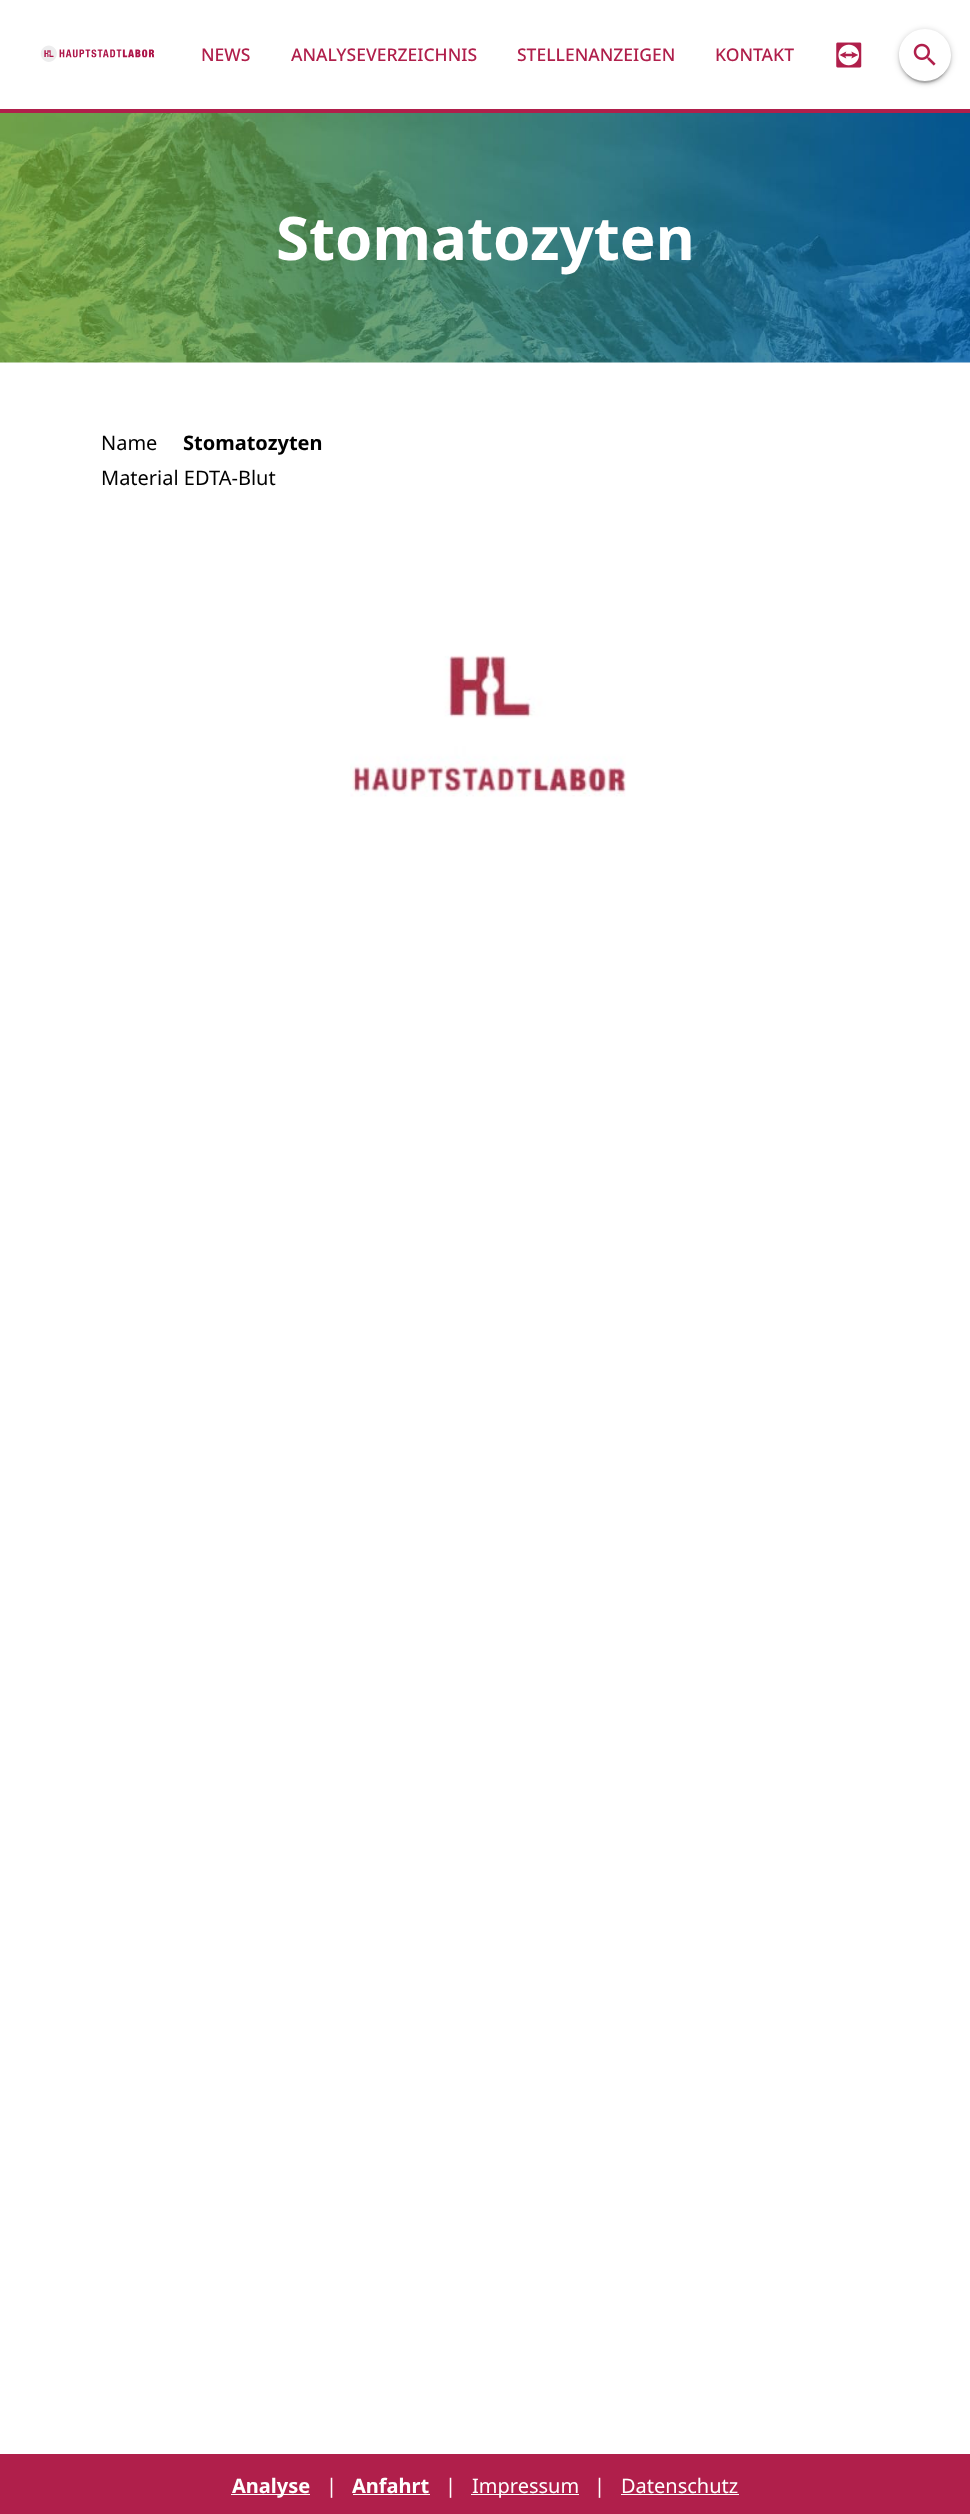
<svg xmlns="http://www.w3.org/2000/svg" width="970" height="2514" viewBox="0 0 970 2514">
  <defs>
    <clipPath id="clip1"><path d="M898 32H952V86H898ZM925 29C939.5 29 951 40.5 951 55C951 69.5 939.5 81 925 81C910.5 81 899 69.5 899 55C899 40.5 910.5 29 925 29Z" clip-rule="evenodd"/></clipPath>
    <filter id="blur1" x="-50%" y="-200%" width="200%" height="500%"><feGaussianBlur stdDeviation="0.5"/></filter>
    <clipPath id="clip2"><path d="M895 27H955V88H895ZM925 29C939.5 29 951 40.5 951 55C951 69.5 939.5 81 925 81C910.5 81 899 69.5 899 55C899 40.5 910.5 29 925 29Z" clip-rule="evenodd"/></clipPath>
    <filter id="blur2" x="-50%" y="-200%" width="200%" height="500%"><feGaussianBlur stdDeviation="1"/></filter>
    <clipPath id="clip3"><path d="M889 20H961V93H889ZM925 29C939.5 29 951 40.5 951 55C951 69.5 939.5 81 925 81C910.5 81 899 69.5 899 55C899 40.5 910.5 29 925 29Z" clip-rule="evenodd"/></clipPath>
    <filter id="blur3" x="-50%" y="-200%" width="200%" height="500%"><feGaussianBlur stdDeviation="3"/></filter>
  </defs>
  <rect width="100%" height="100%" fill="#ffffff"/>
  <rect x="0" y="109" width="970" height="4" fill="#b01f4b"/>
  <image x="40" y="45" width="115" height="17" href="img1.png"/>
  <text x="201" y="61" font-family="Noto Sans" font-size="17.5" font-weight="500" fill="#b01f4b">NEWS</text>
  <text x="291" y="61" font-family="Noto Sans" font-size="17.5" font-weight="500" fill="#b01f4b">ANALYSEVERZEICHNIS</text>
  <text x="517" y="61" font-family="Noto Sans" font-size="17.5" font-weight="500" fill="#b01f4b">STELLENANZEIGEN</text>
  <text x="715" y="61" font-family="Noto Sans" font-size="17.5" font-weight="500" fill="#b01f4b">KONTAKT</text>
  <image x="836" y="42" width="26" height="26" href="img2.png"/>
  <g clip-path="url(#clip1)">
    <rect x="901" y="35" width="48" height="48" rx="24" fill="#000000" fill-opacity="0.12" filter="url(#blur1)"/>
  </g>
  <g clip-path="url(#clip2)">
    <rect x="899" y="31" width="52" height="53" rx="26" fill="#000000" fill-opacity="0.14" filter="url(#blur2)"/>
  </g>
  <g clip-path="url(#clip3)">
    <rect x="899" y="30" width="52" height="53" rx="26" fill="#000000" fill-opacity="0.2" filter="url(#blur3)"/>
  </g>
  <image x="913" y="43" width="23" height="23" href="img3.png"/>
  <image x="0" y="113" width="970" height="250" href="img4.png"/>
  <text x="276" y="260" font-family="Noto Sans" font-size="60" font-weight="bold" fill="#ffffff">Stomatozyten</text>
  <text x="101" y="450" font-family="Noto Sans" font-size="20" fill="#000000">Name</text>
  <text x="183" y="450" font-family="Noto Sans" font-size="20" font-weight="bold" fill="#000000">Stomatozyten</text>
  <text x="101" y="485" font-family="Noto Sans" font-size="20" fill="#000000">Material EDTA-Blut</text>
  <image x="350" y="655" width="276" height="142" href="img5.png"/>
  <rect x="0" y="2454" width="970" height="60" fill="#b01f4b"/>
  <rect x="231" y="2494" width="79" height="1" fill="#ffffff"/>
  <text x="232" y="2493" font-family="Noto Sans" font-size="20" font-weight="bold" fill="#ffffff">Analyse</text>
  <text x="326" y="2493" font-family="Noto Sans" font-size="20" fill="#ffffff">|</text>
  <text x="352" y="2493" font-family="Noto Sans" font-size="20" font-weight="bold" fill="#ffffff">Anfahrt</text>
  <rect x="353" y="2494" width="77" height="1" fill="#ffffff"/>
  <text x="445" y="2493" font-family="Noto Sans" font-size="20" fill="#ffffff">|</text>
  <rect x="471" y="2494" width="108" height="1" fill="#ffffff"/>
  <text x="472" y="2493" font-family="Noto Sans" font-size="20" fill="#ffffff">Impressum</text>
  <text x="594" y="2493" font-family="Noto Sans" font-size="20" fill="#ffffff">|</text>
  <text x="621" y="2493" font-family="Noto Sans" font-size="20" fill="#ffffff">Datenschutz</text>
  <rect x="621" y="2494" width="118" height="1" fill="#ffffff"/>
</svg>
